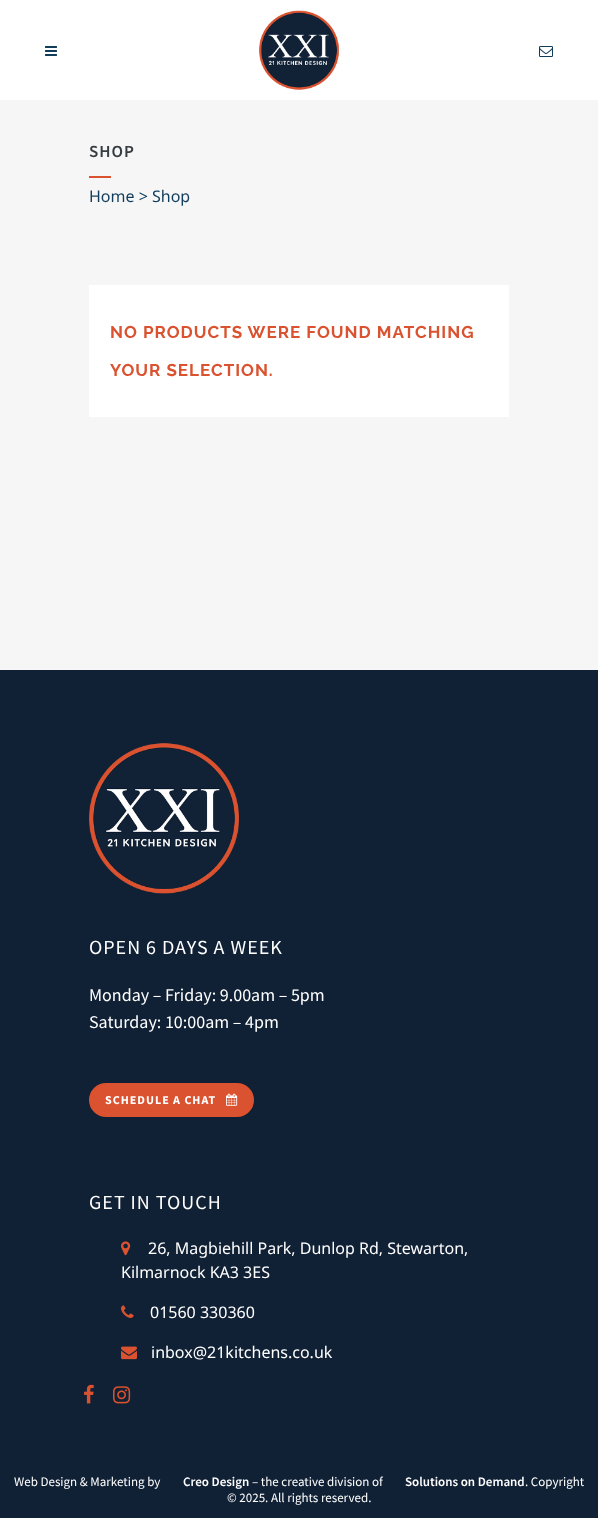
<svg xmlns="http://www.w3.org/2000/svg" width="598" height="1518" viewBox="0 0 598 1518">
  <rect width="100%" height="100%" fill="#f6f6f6"/>
  <rect x="0" y="0" width="598" height="100" fill="#ffffff"/>
  <image x="45" y="46" width="12" height="10" href="img1.png"/>
  <image x="259" y="10" width="80" height="80" href="img2.png"/>
  <image x="539" y="46" width="14" height="11" href="img3.png"/>
  <text x="89" y="157" font-family="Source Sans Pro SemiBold" font-size="17" font-weight="600" letter-spacing="1" fill="#353d43">SHOP</text>
  <rect x="89" y="176" width="22" height="2" fill="#da522f"/>
  <text x="89" y="202" font-family="Noto Sans" font-size="16" fill="#103d5c">Home &gt; Shop</text>
  <rect x="89" y="285" width="420" height="132" fill="#ffffff"/>
  <text x="110" y="338" font-family="Raleway" font-size="17" font-weight="bold" letter-spacing="1" fill="#da522f">NO PRODUCTS WERE FOUND MATCHING</text>
  <text x="110" y="376" font-family="Raleway" font-size="17" font-weight="bold" letter-spacing="1" fill="#da522f">YOUR SELECTION.</text>
  <rect x="0" y="670" width="598" height="848" fill="#112135"/>
  <image x="89" y="743" width="150" height="151" href="img4.png"/>
  <text x="89" y="954" font-family="Source Sans Pro" font-size="20" letter-spacing="1" fill="#ffffff">OPEN 6 DAYS A WEEK</text>
  <text x="89" y="1001" font-family="Source Sans Pro" font-size="18" fill="#ffffff">Monday – Friday: 9.00am – 5pm</text>
  <text x="89" y="1028" font-family="Source Sans Pro" font-size="18" fill="#ffffff">Saturday: 10:00am – 4pm</text>
  <rect x="90" y="1084" width="163" height="32" rx="16" fill="#da522f" stroke="#da522f" stroke-width="2"/>
  <text x="105" y="1104" font-family="Source Sans Pro" font-size="12" font-weight="bold" letter-spacing="1" fill="#ffffff">SCHEDULE A CHAT</text>
  <image x="226" y="1093" width="12" height="13" href="img5.png"/>
  <text x="89" y="1209" font-family="Source Sans Pro" font-size="20" letter-spacing="1" fill="#ffffff">GET IN TOUCH</text>
  <image x="121" y="1241" width="10" height="15" href="img6.png"/>
  <text x="148" y="1254" font-family="Noto Sans" font-size="16" fill="#ffffff">26, Magbiehill Park, Dunlop Rd, Stewarton,</text>
  <text x="121" y="1278" font-family="Noto Sans" font-size="16" fill="#ffffff">Kilmarnock KA3 3ES</text>
  <image x="121" y="1305" width="13" height="13" href="img7.png"/>
  <text x="150" y="1318" font-family="Noto Sans" font-size="16" fill="#ffffff">01560 330360</text>
  <image x="121" y="1346" width="16" height="14" href="img8.png"/>
  <text x="151" y="1358" font-family="Noto Sans" font-size="16" fill="#ffffff">inbox@21kitchens.co.uk</text>
  <image x="84" y="1384" width="10" height="20" href="img9.png"/>
  <image x="113" y="1386" width="18" height="18" href="img10.png"/>
  <text x="14" y="1486" font-family="Source Sans Pro" font-size="13" fill="#ffffff">Web Design &amp; Marketing by</text>
  <text x="183" y="1486" font-family="Source Sans Pro SemiBold" font-size="13" font-weight="600" fill="#ffffff">Creo Design</text>
  <text x="252" y="1486" font-family="Source Sans Pro" font-size="13" fill="#ffffff">– the creative division of</text>
  <text x="405" y="1486" font-family="Source Sans Pro SemiBold" font-size="13" font-weight="600" fill="#ffffff">Solutions on Demand</text>
  <text x="525" y="1486" font-family="Source Sans Pro" font-size="13" fill="#ffffff">. Copyright</text>
  <text x="227" y="1502" font-family="Source Sans Pro" font-size="13" fill="#ffffff">© 2025. All rights reserved.</text>
</svg>
